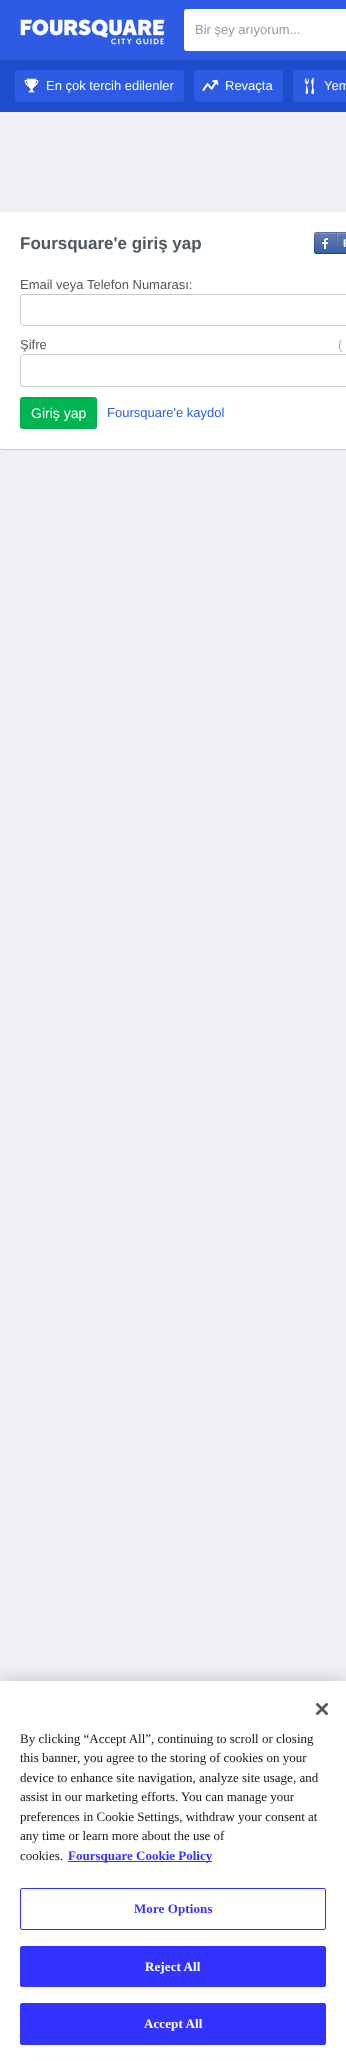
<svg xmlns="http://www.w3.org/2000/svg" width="346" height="2061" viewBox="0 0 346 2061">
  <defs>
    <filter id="blur1" x="-50%" y="-200%" width="200%" height="500%"><feGaussianBlur stdDeviation="9"/></filter>
  </defs>
  <rect width="100%" height="100%" fill="#efeff4"/>
  <rect x="0" y="0" width="346" height="60" fill="#2d5be3"/>
  <image x="20" y="19" width="145" height="26" href="img1.png"/>
  <rect x="184" y="9" width="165" height="42" rx="3" fill="#ffffff"/>
  <text x="195" y="34" font-family="Liberation Sans" font-size="13" fill="#959b9e">Bir şey arıyorum...</text>
  <rect x="0" y="60" width="346" height="52" fill="#204dcc"/>
  <rect x="15" y="70" width="169" height="32" rx="3" fill="#2d5be3"/>
  <image x="24" y="78" width="15" height="15" href="img2.png"/>
  <text x="46" y="90" font-family="Liberation Sans" font-size="13" fill="#ffffff">En çok tercih edilenler</text>
  <rect x="194" y="70" width="89" height="32" rx="3" fill="#2d5be3"/>
  <image x="202" y="79" width="17" height="13" href="img3.png"/>
  <text x="225" y="90" font-family="Liberation Sans" font-size="13" fill="#ffffff">Revaçta</text>
  <rect x="293" y="70" width="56" height="32" rx="3" fill="#2d5be3"/>
  <image x="304" y="77" width="11" height="17" href="img4.png"/>
  <text x="324" y="90" font-family="Liberation Sans" font-size="13" fill="#ffffff">Yem</text>
  <path d="M0 446C0 448 0 450 2 450H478L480 448V446C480 448 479 449 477 449H3C1 449 0 448 0 446Z" fill="#c7cdcf"/>
  <rect x="0" y="212" width="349" height="237" rx="3" fill="#ffffff"/>
  <text x="20" y="249" font-family="Liberation Sans" font-size="17" font-weight="bold" fill="#4e595d">Foursquare'e giriş yap</text>
  <image x="338" y="232" width="8" height="22" href="img5.png"/>
  <image x="314" y="232" width="24" height="22" href="img6.png"/>
  <text x="343" y="247" font-family="Liberation Sans" font-size="11" font-weight="bold" fill="#ffffff">F</text>
  <text x="20" y="289" font-family="Liberation Sans" font-size="13" fill="#4e595d">Email veya Telefon Numarası:</text>
  <rect x="20.5" y="294.5" width="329" height="31" rx="2.5" fill="none" stroke="#c7cdcf"/>
  <text x="20" y="349" font-family="Liberation Sans" font-size="13" fill="#4e595d">Şifre</text>
  <text x="338" y="349" font-family="Liberation Sans" font-size="13" fill="#aeb4b6">(</text>
  <rect x="20.5" y="354.5" width="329" height="32" rx="2.5" fill="none" stroke="#c7cdcf"/>
  <rect x="20" y="397" width="77" height="32" rx="3" fill="#00b551"/>
  <rect x="20.5" y="397.5" width="76" height="31" fill="none" stroke="#000000" stroke-opacity="0.05"/>
  <text x="31" y="418" font-family="Liberation Sans" font-size="14" fill="#ffffff">Giriş yap</text>
  <text x="107" y="417" font-family="Liberation Sans" font-size="13" fill="#2d5be3">Foursquare'e kaydol</text>
  <rect x="0" y="1681" width="346" height="380" fill="#000000" fill-opacity="0.2" filter="url(#blur1)"/>
  <rect x="0" y="1681" width="346" height="380" fill="#ffffff"/>
  <image x="316" y="1703" width="12" height="12" href="img7.png"/>
  <text x="20" y="1743" font-family="Liberation Serif" font-size="13" fill="#171417">By clicking “Accept All”, continuing to scroll or closing</text>
  <text x="20" y="1762" font-family="Liberation Serif" font-size="13" fill="#171417">this banner, you agree to the storing of cookies on your</text>
  <text x="20" y="1782" font-family="Liberation Serif" font-size="13" fill="#171417">device to enhance site navigation, analyze site usage, and</text>
  <text x="20" y="1801" font-family="Liberation Serif" font-size="13" fill="#171417">assist in our marketing efforts. You can manage your</text>
  <text x="20" y="1821" font-family="Liberation Serif" font-size="13" fill="#171417">preferences in Cookie Settings, withdraw your consent at</text>
  <text x="20" y="1840" font-family="Liberation Serif" font-size="13" fill="#171417">any time or learn more about the use of</text>
  <text x="20" y="1860" font-family="Liberation Serif" font-size="13" fill="#171417">cookies.</text>
  <rect x="68" y="1861" width="144" height="1" fill="#3333ff"/>
  <text x="68" y="1860" font-family="Liberation Serif" font-size="13" font-weight="bold" fill="#3333ff">Foursquare Cookie Policy</text>
  <rect x="20.5" y="1888.5" width="305" height="41" rx="1.5" fill="none" stroke="#3333ff"/>
  <text x="134" y="1913" font-family="Liberation Serif" font-size="13" font-weight="bold" letter-spacing="0.1" fill="#3333ff">More Options</text>
  <rect x="20.5" y="1946.5" width="305" height="40" rx="1.5" fill="#3333ff" stroke="#3333ff"/>
  <text x="145" y="1971" font-family="Liberation Serif" font-size="13" font-weight="bold" letter-spacing="0.1" fill="#ffffff">Reject All</text>
  <rect x="20.5" y="2003.5" width="305" height="41" rx="1.5" fill="#3333ff" stroke="#3333ff"/>
  <text x="144" y="2028" font-family="Liberation Serif" font-size="13" font-weight="bold" letter-spacing="0.1" fill="#ffffff">Accept All</text>
</svg>
